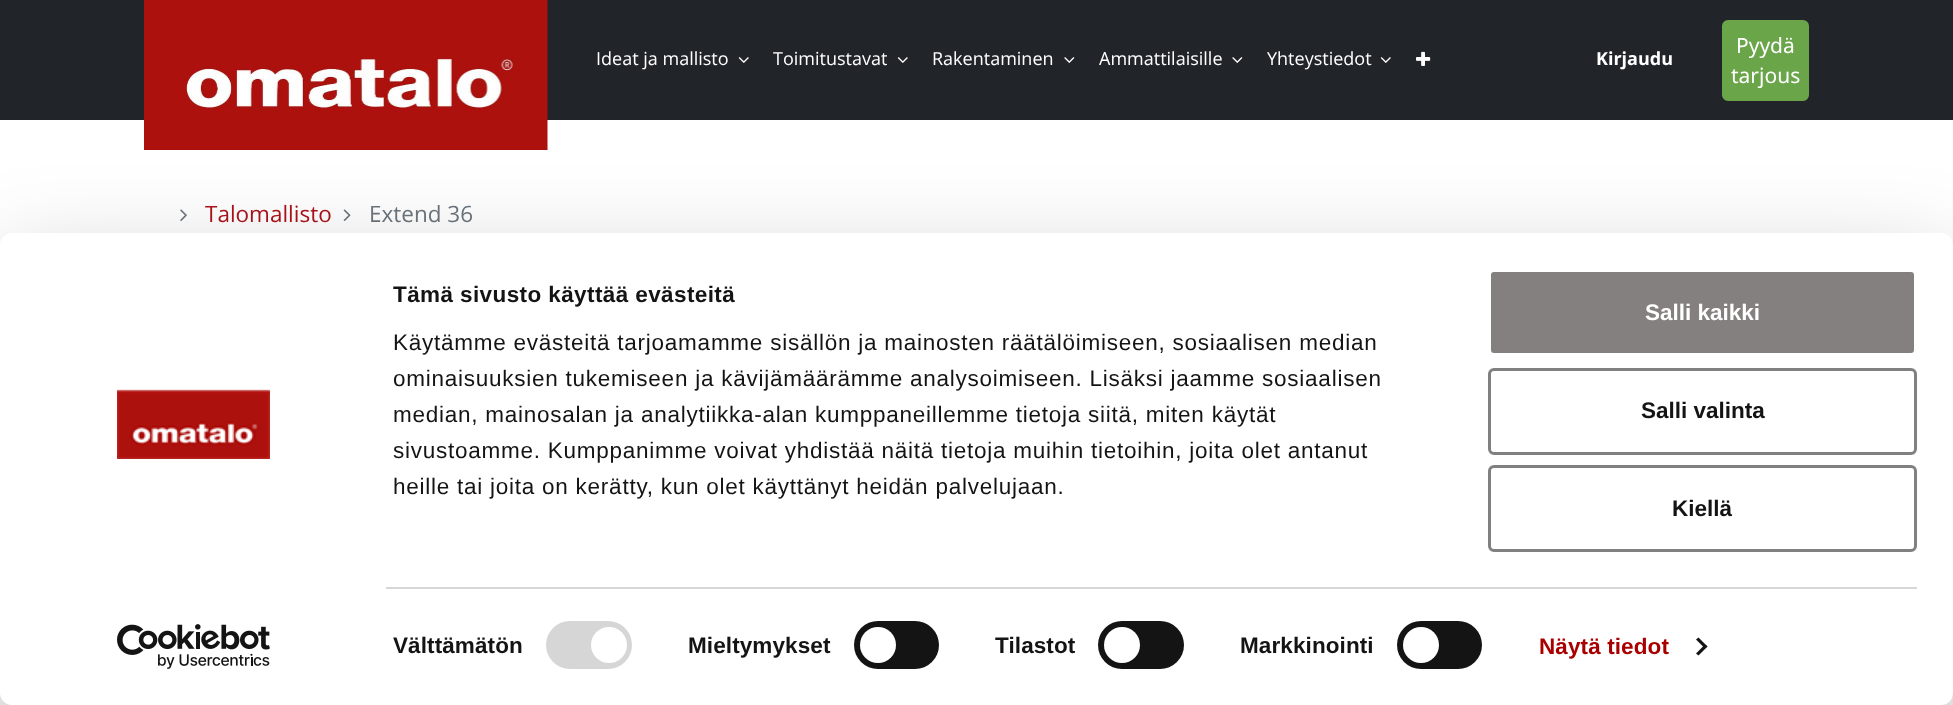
<svg xmlns="http://www.w3.org/2000/svg" width="1953" height="705" viewBox="0 0 1953 705">
  <defs>
    <filter id="blur1" x="-50%" y="-200%" width="200%" height="500%"><feGaussianBlur stdDeviation="52.5"/></filter>
  </defs>
  <rect width="100%" height="100%" fill="#ffffff"/>
  <rect x="0" y="0" width="1953" height="120" fill="#212529"/>
  <image x="144" y="0" width="404" height="150" href="img1.png"/>
  <text x="596" y="65" font-family="Open Sans" font-size="18" fill="#ffffff">Ideat ja mallisto</text>
  <image x="738" y="57" width="11" height="6" href="img2.png"/>
  <text x="773" y="65" font-family="Open Sans" font-size="18" fill="#ffffff">Toimitustavat</text>
  <image x="897" y="57" width="11" height="6" href="img2.png"/>
  <text x="932" y="65" font-family="Open Sans" font-size="18" fill="#ffffff">Rakentaminen</text>
  <image x="1064" y="57" width="11" height="6" href="img3.png"/>
  <text x="1099" y="65" font-family="Open Sans" font-size="18" fill="#ffffff">Ammattilaisille</text>
  <image x="1232" y="57" width="11" height="6" href="img3.png"/>
  <text x="1267" y="65" font-family="Open Sans" font-size="18" fill="#ffffff">Yhteystiedot</text>
  <image x="1380" y="57" width="11" height="6" href="img2.png"/>
  <image x="1416" y="51" width="15" height="15" href="img4.png"/>
  <text x="1596" y="65" font-family="Open Sans" font-size="18" font-weight="bold" fill="#ffffff">Kirjaudu</text>
  <rect x="1726" y="24" width="79" height="73" rx="2" fill="#6ba54a" stroke="#6ba54a" stroke-width="8"/>
  <text x="1736" y="53" font-family="Noto Sans" font-size="21" fill="#ffffff">Pyydä</text>
  <text x="1731" y="83" font-family="Noto Sans" font-size="21" fill="#ffffff">tarjous</text>
  <image x="180" y="209" width="7" height="12" href="img5.png"/>
  <text x="205" y="222" font-family="Open Sans" font-size="22.5" fill="#ad121a">Talomallisto</text>
  <image x="343" y="209" width="8" height="12" href="img6.png"/>
  <text x="369" y="222" font-family="Open Sans" font-size="22.5" fill="#6c757d">Extend 36</text>
  <rect x="0" y="278" width="1953" height="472" rx="12" fill="#000000" fill-opacity="0.3" filter="url(#blur1)"/>
  <rect x="0" y="233" width="1953" height="472" rx="12" fill="#ffffff"/>
  <image x="117" y="389" width="153" height="70" href="img7.png"/>
  <image x="117" y="624" width="153" height="45" href="img8.png"/>
  <text x="393" y="302" font-family="Liberation Sans" font-size="22.5" font-weight="bold" letter-spacing="0.4" fill="#141414">Tämä sivusto käyttää evästeitä</text>
  <text x="393" y="350" font-family="Liberation Sans" font-size="22.5" letter-spacing="0.75" fill="#141414">Käytämme evästeitä tarjoamamme sisällön ja mainosten räätälöimiseen, sosiaalisen median</text>
  <text x="393" y="386" font-family="Liberation Sans" font-size="22.5" letter-spacing="0.75" fill="#141414">ominaisuuksien tukemiseen ja kävijämäärämme analysoimiseen. Lisäksi jaamme sosiaalisen</text>
  <text x="393" y="422" font-family="Liberation Sans" font-size="22.5" letter-spacing="0.75" fill="#141414">median, mainosalan ja analytiikka-alan kumppaneillemme tietoja siitä, miten käytät</text>
  <text x="393" y="458" font-family="Liberation Sans" font-size="22.5" letter-spacing="0.75" fill="#141414">sivustoamme. Kumppanimme voivat yhdistää näitä tietoja muihin tietoihin, joita olet antanut</text>
  <text x="393" y="494" font-family="Liberation Sans" font-size="22.5" letter-spacing="0.75" fill="#141414">heille tai joita on kerätty, kun olet käyttänyt heidän palvelujaan.</text>
  <rect x="386" y="587" width="1531" height="2" fill="#d6d6d6"/>
  <text x="393" y="653" font-family="Liberation Sans" font-size="22.5" font-weight="bold" letter-spacing="0.1" fill="#141414">Välttämätön</text>
  <rect x="546" y="621" width="86" height="48" rx="24" fill="#d6d6d6"/>
  <circle cx="609" cy="645" r="18" fill="#ffffff"/>
  <text x="688" y="653" font-family="Liberation Sans" font-size="22.5" font-weight="bold" letter-spacing="0.1" fill="#141414">Mieltymykset</text>
  <rect x="854" y="621" width="85" height="48" rx="24" fill="#141414"/>
  <circle cx="878" cy="645" r="18" fill="#ffffff"/>
  <text x="995" y="653" font-family="Liberation Sans" font-size="22.5" font-weight="bold" letter-spacing="0.1" fill="#141414">Tilastot</text>
  <rect x="1098" y="621" width="86" height="48" rx="24" fill="#141414"/>
  <circle cx="1122" cy="645" r="18" fill="#ffffff"/>
  <text x="1240" y="653" font-family="Liberation Sans" font-size="22.5" font-weight="bold" letter-spacing="0.1" fill="#141414">Markkinointi</text>
  <rect x="1397" y="621" width="85" height="48" rx="24" fill="#141414"/>
  <circle cx="1421" cy="645" r="18" fill="#ffffff"/>
  <text x="1539" y="654" font-family="Liberation Sans" font-size="22.5" font-weight="bold" letter-spacing="0.1" fill="#a80000">Näytä tiedot</text>
  <path d="M1698.5 637.5L1707.5 646.5L1705 648.5L1696 639.5Z" fill="#141414"/>
  <path d="M1705 644.5L1707.5 646.5L1698.5 655.5L1696 653.5Z" fill="#141414"/>
  <rect x="1489.5" y="270.5" width="426" height="84" rx="4.5" fill="#858080" stroke="#ffffff" stroke-width="3"/>
  <text x="1645" y="320" font-family="Liberation Sans" font-size="22.5" font-weight="bold" fill="#ffffff">Salli kaikki</text>
  <rect x="1489.5" y="369.5" width="426" height="84" rx="4.5" fill="none" stroke="#808080" stroke-width="3"/>
  <text x="1641" y="418" font-family="Liberation Sans" font-size="22.5" font-weight="bold" fill="#141414">Salli valinta</text>
  <rect x="1489.5" y="466.5" width="426" height="84" rx="4.5" fill="none" stroke="#808080" stroke-width="3"/>
  <text x="1672" y="516" font-family="Liberation Sans" font-size="22.5" font-weight="bold" fill="#141414">Kiellä</text>
</svg>
